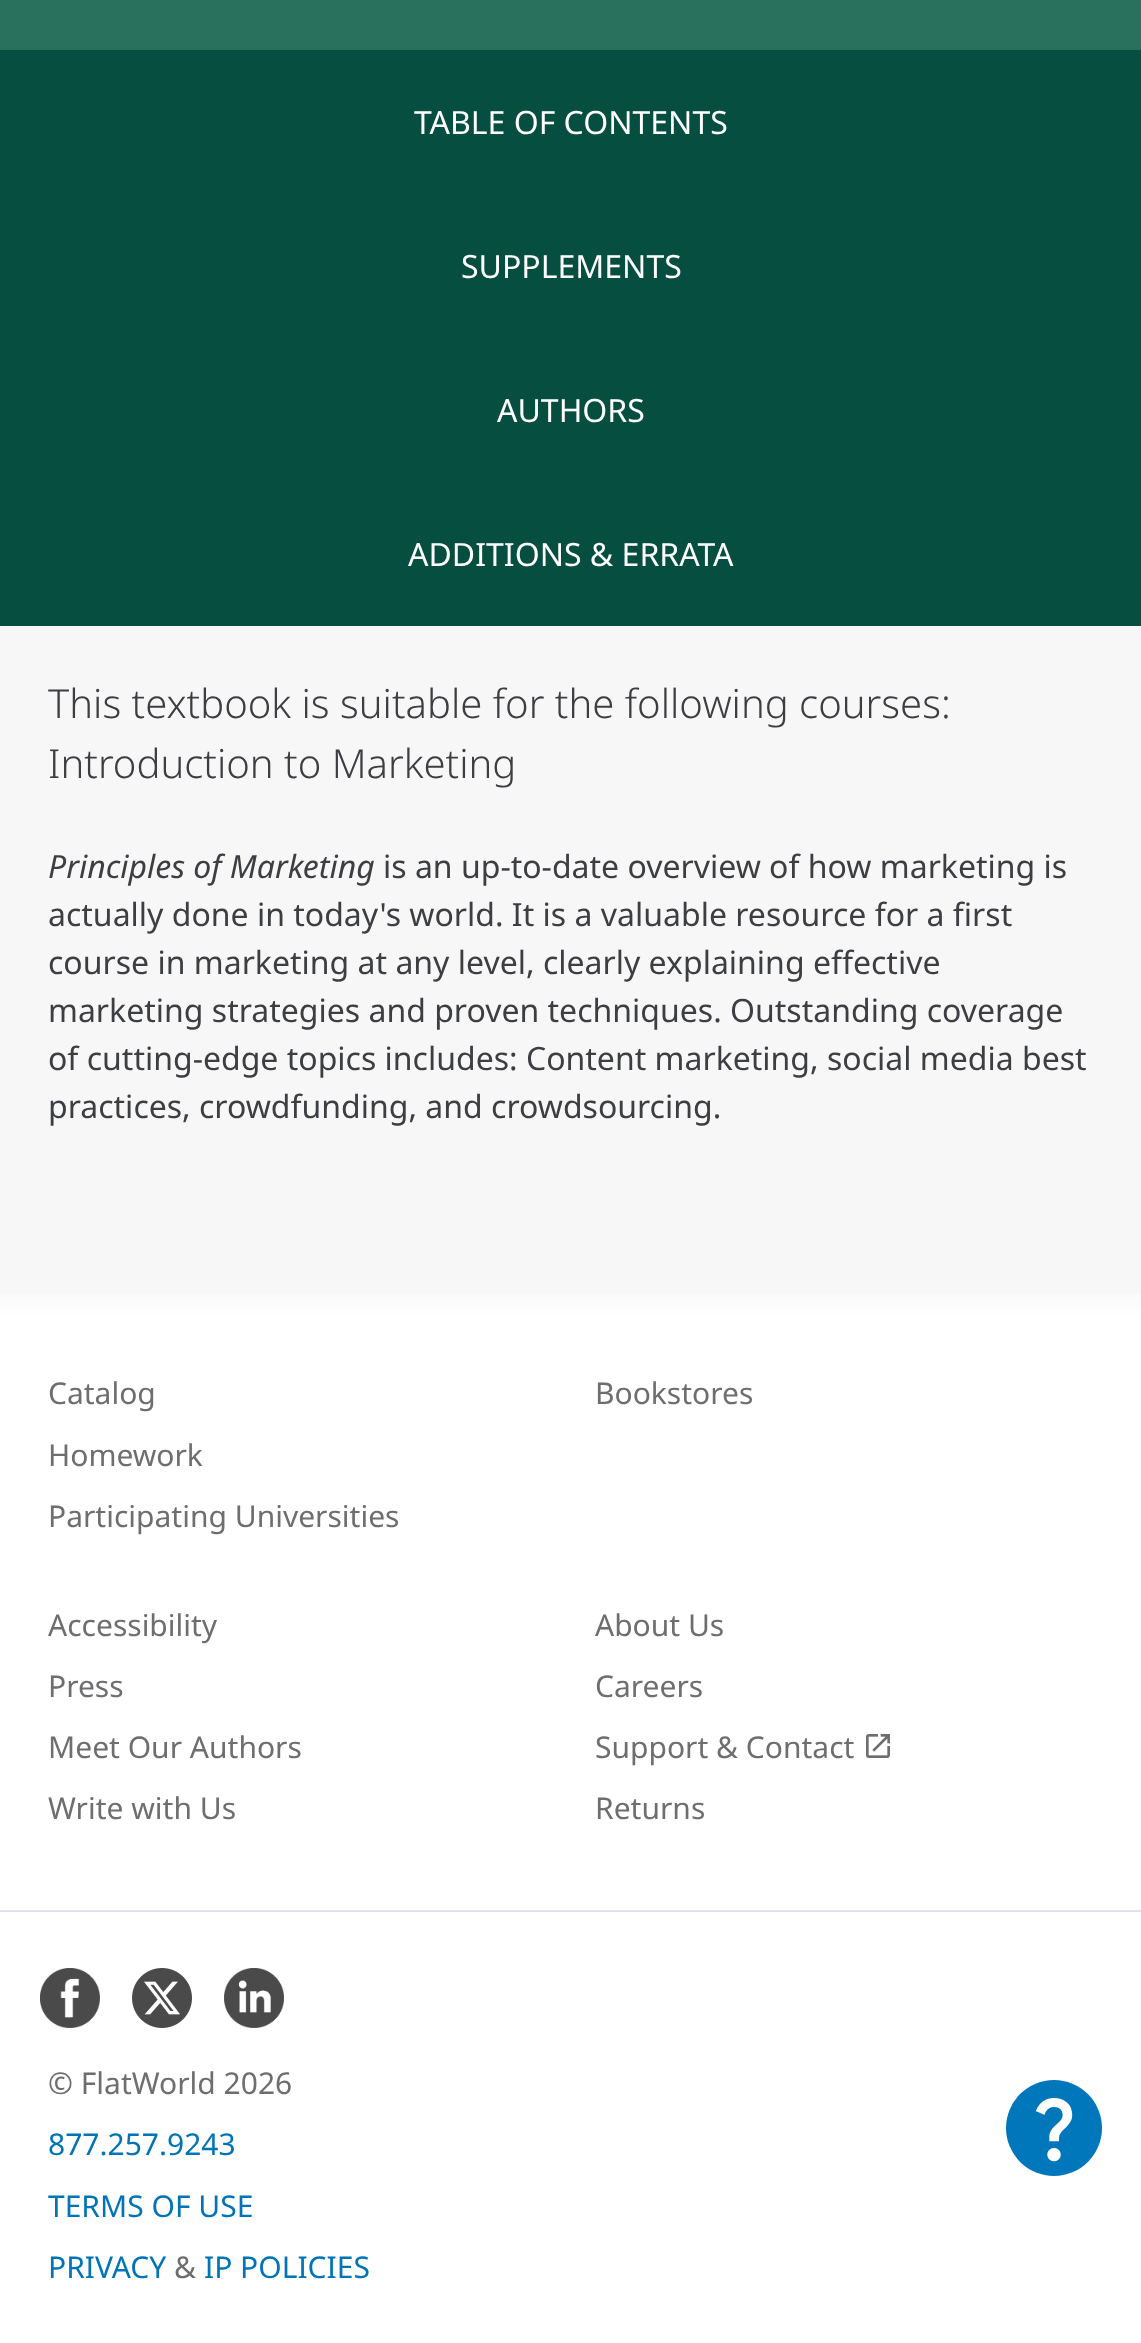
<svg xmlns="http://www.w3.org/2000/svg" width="1141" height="2343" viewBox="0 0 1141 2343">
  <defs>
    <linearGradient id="g1" gradientUnits="userSpaceOnUse" x1="571" y1="1274" x2="571" y2="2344"><stop offset="0" stop-color="#f5f5f5"/><stop offset="0.04" stop-color="#ffffff"/></linearGradient>
  </defs>
  <rect width="100%" height="100%" fill="#f7f7f7"/>
  <rect x="0" y="50" width="1141" height="576" fill="#054e40"/>
  <rect x="0" y="0" width="1141" height="50" fill="#2a715d"/>
  <text x="414" y="134" font-family="Noto Sans" font-size="32" fill="#ffffff">TABLE OF CONTENTS</text>
  <text x="461" y="278" font-family="Noto Sans" font-size="32" fill="#ffffff">SUPPLEMENTS</text>
  <text x="497" y="422" font-family="Noto Sans" font-size="32" fill="#ffffff">AUTHORS</text>
  <text x="408" y="566" font-family="Noto Sans" font-size="32" fill="#ffffff">ADDITIONS &amp; ERRATA</text>
  <text x="48" y="718" font-family="Noto Sans" font-size="40" font-weight="300" fill="#3d3e41">This textbook is suitable for the following courses:</text>
  <text x="48" y="778" font-family="Noto Sans" font-size="40" font-weight="300" fill="#3d3e41">Introduction to Marketing</text>
  <text x="48" y="878" font-family="Noto Sans" font-size="32" font-style="italic" fill="#3d3e41">Principles of Marketing</text>
  <text x="383" y="878" font-family="Noto Sans" font-size="32" fill="#3d3e41">is an up-to-date overview of how marketing is</text>
  <text x="48" y="926" font-family="Noto Sans" font-size="32" fill="#3d3e41">actually done in today's world. It is a valuable resource for a first</text>
  <text x="48" y="974" font-family="Noto Sans" font-size="32" fill="#3d3e41">course in marketing at any level, clearly explaining effective</text>
  <text x="48" y="1022" font-family="Noto Sans" font-size="32" fill="#3d3e41">marketing strategies and proven techniques. Outstanding coverage</text>
  <text x="48" y="1070" font-family="Noto Sans" font-size="32" fill="#3d3e41">of cutting-edge topics includes: Content marketing, social media best</text>
  <text x="48" y="1118" font-family="Noto Sans" font-size="32" fill="#3d3e41">practices, crowdfunding, and crowdsourcing.</text>
  <rect x="0" y="1293" width="1141" height="1050" fill="url(#g1)"/>
  <text x="48" y="1404" font-family="Noto Sans" font-size="30" fill="#6e6e71">Catalog</text>
  <text x="48" y="1466" font-family="Noto Sans" font-size="30" fill="#6e6e71">Homework</text>
  <text x="48" y="1527" font-family="Noto Sans" font-size="30" fill="#6e6e71">Participating Universities</text>
  <text x="595" y="1404" font-family="Noto Sans" font-size="30" fill="#6e6e71">Bookstores</text>
  <text x="48" y="1636" font-family="Noto Sans" font-size="30" fill="#6e6e71">Accessibility</text>
  <text x="48" y="1697" font-family="Noto Sans" font-size="30" fill="#6e6e71">Press</text>
  <text x="48" y="1758" font-family="Noto Sans" font-size="30" fill="#6e6e71">Meet Our Authors</text>
  <text x="48" y="1819" font-family="Noto Sans" font-size="30" fill="#6e6e71">Write with Us</text>
  <text x="595" y="1636" font-family="Noto Sans" font-size="30" fill="#6e6e71">About Us</text>
  <text x="595" y="1697" font-family="Noto Sans" font-size="30" fill="#6e6e71">Careers</text>
  <text x="595" y="1758" font-family="Noto Sans" font-size="30" fill="#6e6e71">Support &amp; Contact</text>
  <image x="866" y="1734" width="24" height="24" href="img1.png"/>
  <text x="595" y="1819" font-family="Noto Sans" font-size="30" fill="#6e6e71">Returns</text>
  <rect x="0" y="1910" width="1141" height="2" fill="#dee2e6"/>
  <image x="40" y="1968" width="60" height="60" href="img2.png"/>
  <image x="132" y="1968" width="60" height="60" href="img3.png"/>
  <image x="224" y="1968" width="60" height="60" href="img4.png"/>
  <text x="48" y="2094" font-family="Noto Sans" font-size="30" fill="#6e6e71">© FlatWorld 2026</text>
  <text x="48" y="2155" font-family="Noto Sans" font-size="30" fill="#0074b6">877.257.9243</text>
  <text x="48" y="2217" font-family="Noto Sans" font-size="30" fill="#0074b6">TERMS OF USE</text>
  <text x="48" y="2278" font-family="Noto Sans" font-size="30" fill="#0074b6">PRIVACY</text>
  <text x="174" y="2278" font-family="Noto Sans" font-size="30" fill="#6e6e71">&amp;</text>
  <text x="204" y="2278" font-family="Noto Sans" font-size="30" fill="#0074b6">IP POLICIES</text>
  <circle cx="1054" cy="2128" r="48" fill="#0077bb"/>
  <image x="1036" y="2098" width="37" height="64" href="img5.png"/>
</svg>
